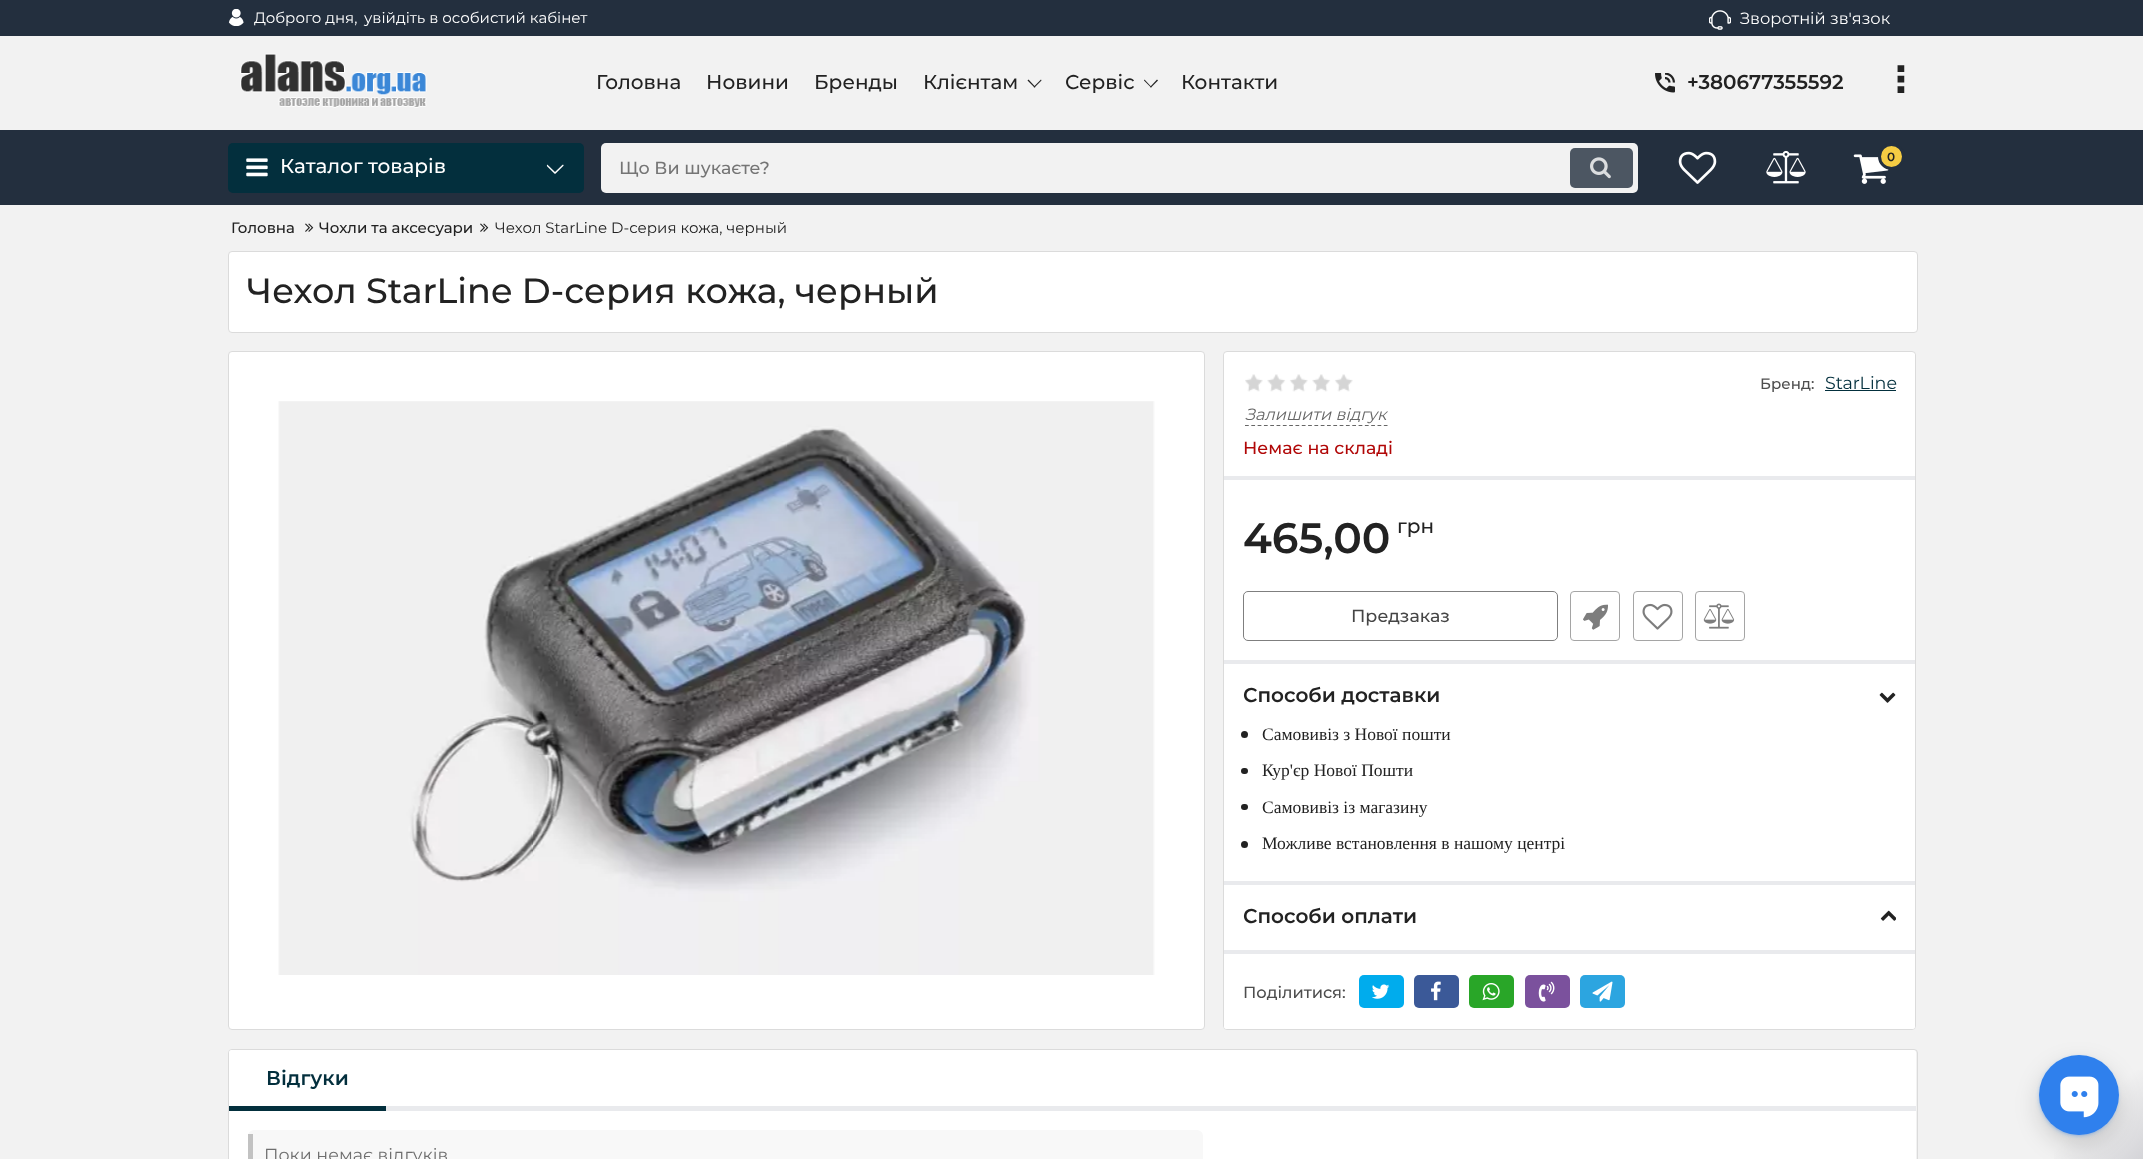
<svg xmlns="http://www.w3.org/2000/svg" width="2143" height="1159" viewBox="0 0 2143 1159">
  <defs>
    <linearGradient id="g1" gradientUnits="userSpaceOnUse" x1="2019" y1="1035" x2="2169" y2="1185"><stop offset="0.5" stop-color="#f2f2f2"/><stop offset="1" stop-color="#c4c4ca"/></linearGradient>
    <filter id="blur1" x="-50%" y="-200%" width="200%" height="500%"><feGaussianBlur stdDeviation="12.5"/></filter>
    <filter id="blur2" x="-50%" y="-200%" width="200%" height="500%"><feGaussianBlur stdDeviation="2.5"/></filter>
  </defs>
  <rect width="100%" height="100%" fill="#f2f2f2"/>
  <rect x="0" y="0" width="2143" height="36" fill="#232f3e"/>
  <image x="228" y="9" width="16" height="17" href="img1.png"/>
  <text x="254" y="23" font-family="Montserrat" font-size="15" fill="#ffffff">Доброго дня,</text>
  <text x="364" y="23" font-family="Montserrat" font-size="15" fill="#ffffff">увійдіть в особистий кабінет</text>
  <image x="1709" y="10" width="22" height="20" href="img2.png"/>
  <text x="1740" y="24" font-family="Montserrat" font-size="16.25" fill="#ffffff">Зворотній зв'язок</text>
  <image x="240" y="53" width="187" height="55" href="img3.png"/>
  <text x="596" y="89" font-family="Montserrat" font-size="20" font-weight="500" fill="#222222">Головна</text>
  <text x="706" y="89" font-family="Montserrat" font-size="20" font-weight="500" fill="#222222">Новини</text>
  <text x="814" y="89" font-family="Montserrat" font-size="20" font-weight="500" fill="#222222">Бренды</text>
  <text x="923" y="89" font-family="Montserrat" font-size="20" font-weight="500" fill="#222222">Клієнтам</text>
  <path d="M1041 79.5L1041.5 80.5L1034.5 87.5L1033.5 87Z" fill="#222222"/>
  <path d="M1028.5 79.5L1035.5 87L1034.5 87.5L1027.5 80.5Z" fill="#222222"/>
  <text x="1065" y="89" font-family="Montserrat" font-size="20" font-weight="500" fill="#222222">Сервіс</text>
  <path d="M1157 79.5L1158 80.5L1151 87.5L1150 87Z" fill="#222222"/>
  <path d="M1144.5 79.5L1151.5 87L1151 87.5L1144 80.5Z" fill="#222222"/>
  <text x="1181" y="89" font-family="Montserrat" font-size="20" font-weight="500" fill="#222222">Контакти</text>
  <image x="1655" y="73" width="20" height="20" href="img4.png"/>
  <text x="1687" y="89" font-family="Montserrat" font-size="20" font-weight="600" fill="#222222">+380677355592</text>
  <text x="1892" y="96" font-family="DejaVu Sans" font-size="38" font-weight="bold" fill="#222222">⠇</text>
  <rect x="0" y="130" width="2143" height="75" fill="#232f3e"/>
  <rect x="228" y="143" width="356" height="50" rx="5" fill="#032f3d"/>
  <image x="246" y="158" width="22" height="19" href="img5.png"/>
  <text x="280" y="173" font-family="Montserrat" font-size="20" font-weight="500" fill="#ffffff">Каталог товарів</text>
  <image x="546" y="164" width="18" height="10" href="img6.png"/>
  <rect x="601" y="143" width="1037" height="50" rx="5" fill="#f2f2f2"/>
  <text x="619" y="174" font-family="Montserrat" font-size="17.5" font-weight="500" fill="#757575">Що Ви шукаєте?</text>
  <rect x="1570" y="148" width="63" height="40" rx="5" fill="#4c5662"/>
  <image x="1590" y="157" width="21" height="22" href="img7.png"/>
  <image x="1678" y="151" width="39" height="33" href="img8.png"/>
  <image x="1766" y="150" width="40" height="34" href="img9.png"/>
  <image x="1853" y="154" width="36" height="30" href="img10.png"/>
  <circle cx="1891.5" cy="156.5" r="12" fill="#f5cc43" stroke="#232f3e" stroke-width="3"/>
  <text x="1887" y="161" font-family="Montserrat" font-size="12" font-weight="600" fill="#222222">0</text>
  <text x="231" y="233" font-family="Montserrat" font-size="15" font-weight="500" fill="#222222">Головна</text>
  <image x="305" y="223" width="9" height="9" href="img11.png"/>
  <text x="319" y="233" font-family="Montserrat" font-size="15" font-weight="500" fill="#222222">Чохли та аксесуари</text>
  <image x="480" y="223" width="9" height="9" href="img11.png"/>
  <text x="495" y="233" font-family="Montserrat" font-size="15" fill="#222222">Чехол StarLine D-серия кожа, черный</text>
  <rect x="228.5" y="251.5" width="1689" height="81" rx="3.5" fill="#ffffff" stroke="#dbdbdb"/>
  <text x="247" y="303" font-family="Montserrat" font-size="35" font-weight="500" fill="#222222">Чехол StarLine D-серия кожа, черный</text>
  <rect x="228.5" y="351.5" width="976" height="678" rx="3.5" fill="#ffffff" stroke="#dbdbdb"/>
  <image x="278" y="401" width="877" height="574" href="img12.png"/>
  <rect x="1223.5" y="351.5" width="692" height="678" rx="3.5" fill="#ffffff" stroke="#dbdbdb"/>
  <path d="M1226.5 353H1912.5C1914 353 1915 354 1915 355.5V480H1224V355.5C1224 354 1225 353 1226.5 353Z" fill="#ffffff"/>
  <rect x="1224" y="476" width="691" height="4" fill="#e9eaed"/>
  <image x="1245" y="374" width="108" height="18" href="img13.png"/>
  <text x="1760" y="389" font-family="Montserrat" font-size="15" font-weight="500" fill="#4e4e4e">Бренд:</text>
  <text x="1825" y="389" font-family="Montserrat" font-size="17.5" fill="#032f3d">StarLine</text>
  <rect x="1825" y="390" width="71" height="1" fill="#032f3d"/>
  <path d="M1245 425.5H1387.5" fill="none" stroke="#666666" stroke-width="1.2" stroke-dasharray="3.75 2.56"/>
  <text x="1245" y="420" font-family="Montserrat" font-size="16.25" font-style="italic" fill="#666666">Залишити відгук</text>
  <text x="1243" y="454" font-family="Montserrat" font-size="17.5" font-weight="500" fill="#b10707">Немає на складі</text>
  <rect x="1224" y="660" width="691" height="4" fill="#e9eaed"/>
  <text x="1243" y="553" font-family="Montserrat" font-size="42.5" font-weight="600" fill="#222222">465,00</text>
  <text x="1397" y="533" font-family="Montserrat" font-size="20" font-weight="500" fill="#222222">грн</text>
  <rect x="1243.5" y="591.5" width="314" height="49" rx="4.5" fill="none" stroke="#7f7f7f"/>
  <text x="1351" y="622" font-family="Montserrat" font-size="17.5" font-weight="500" fill="#454545">Предзаказ</text>
  <rect x="1570.5" y="591.5" width="49" height="49" rx="3.5" fill="none" stroke="#a5a5a5"/>
  <image x="1583" y="604" width="25" height="26" href="img14.png"/>
  <rect x="1633.5" y="591.5" width="49" height="49" rx="3.5" fill="none" stroke="#a5a5a5"/>
  <image x="1642" y="603" width="31" height="27" href="img15.png"/>
  <rect x="1695.5" y="591.5" width="49" height="49" rx="3.5" fill="none" stroke="#a5a5a5"/>
  <image x="1703" y="603" width="32" height="26" href="img16.png"/>
  <rect x="1224" y="950" width="691" height="4" fill="#e9eaed"/>
  <rect x="1224" y="881" width="691" height="4" fill="#e9eaed"/>
  <text x="1243" y="702" font-family="Montserrat" font-size="20" font-weight="600" fill="#222222">Способи доставки</text>
  <image x="1879" y="692" width="17" height="11" href="img17.png"/>
  <circle cx="1244.5" cy="734.5" r="3.5" fill="#222222"/>
  <text x="1262" y="740" font-family="Liberation Serif" font-size="17.5" fill="#222222">Самовивіз з Нової пошти</text>
  <rect x="1241" y="768" width="7" height="6" rx="3" fill="#222222"/>
  <text x="1262" y="776" font-family="Liberation Serif" font-size="17.5" fill="#222222">Кур'єр Нової Пошти</text>
  <rect x="1241" y="804" width="7" height="6" rx="3" fill="#222222"/>
  <text x="1262" y="813" font-family="Liberation Serif" font-size="17.5" fill="#222222">Самовивіз із магазину</text>
  <circle cx="1244.5" cy="844.5" r="3.5" fill="#222222"/>
  <text x="1262" y="849" font-family="Liberation Serif" font-size="17.5" fill="#222222">Можливе встановлення в нашому центрі</text>
  <text x="1243" y="923" font-family="Montserrat" font-size="20" font-weight="600" fill="#222222">Способи оплати</text>
  <image x="1880" y="910" width="16" height="11" href="img18.png"/>
  <path d="M1224 954H1915V1026.5C1915 1028 1914 1029 1912.5 1029H1226.5C1225 1029 1224 1028 1224 1026.5Z" fill="#ffffff"/>
  <text x="1243" y="998" font-family="Montserrat" font-size="16.25" font-weight="500" fill="#4e4e4e">Поділитися:</text>
  <rect x="1359" y="975" width="45" height="33" rx="5" fill="#00aced"/>
  <image x="1372" y="984" width="18" height="15" href="img19.png"/>
  <rect x="1414" y="975" width="45" height="33" rx="5" fill="#3b5998"/>
  <image x="1431" y="981" width="10" height="20" href="img20.png"/>
  <rect x="1469" y="975" width="45" height="33" rx="5" fill="#29a628"/>
  <image x="1482" y="983" width="18" height="18" href="img21.png"/>
  <rect x="1525" y="975" width="45" height="33" rx="5" fill="#7b519d"/>
  <image x="1538" y="981" width="17" height="21" href="img22.png"/>
  <rect x="1580" y="975" width="45" height="33" rx="5" fill="#2ca5e0"/>
  <image x="1592" y="981" width="21" height="21" href="img23.png"/>
  <rect x="228.5" y="1049.5" width="1689" height="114" rx="3.5" fill="none" stroke="#dbdbdb"/>
  <path d="M231.5 1050H1913.5C1915 1050 1916 1051 1916 1052.5V1111H229V1052.5C229 1051 230 1050 231.5 1050Z" fill="#ffffff"/>
  <rect x="386" y="1106" width="1530" height="5" fill="#e9eaed"/>
  <text x="266" y="1085" font-family="Montserrat" font-size="20" font-weight="600" fill="#032f3d">Відгуки</text>
  <rect x="229" y="1106" width="157" height="5" fill="#032f3d"/>
  <rect x="229" y="1111" width="1687" height="48" fill="#ffffff"/>
  <rect x="248" y="1130" width="955" height="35" rx="6" fill="#f8f8f8"/>
  <rect x="248" y="1134" width="5" height="25" fill="#c2c2c2"/>
  <text x="264" y="1161" font-family="Montserrat" font-size="17.5" fill="#6f6f6f">Поки немає відгуків</text>
  <rect x="2054" y="1070" width="89" height="89" fill="url(#g1)"/>
  <rect x="2039" y="1065" width="80" height="80" rx="40" fill="#000000" fill-opacity="0.16" filter="url(#blur1)"/>
  <rect x="2041" y="1059" width="75" height="75" rx="37.5" fill="#2f80ed" filter="url(#blur2)"/>
  <circle cx="2079" cy="1095" r="40" fill="#2f80ed"/>
  <image x="2060" y="1076" width="39" height="42" href="img24.png"/>
</svg>
